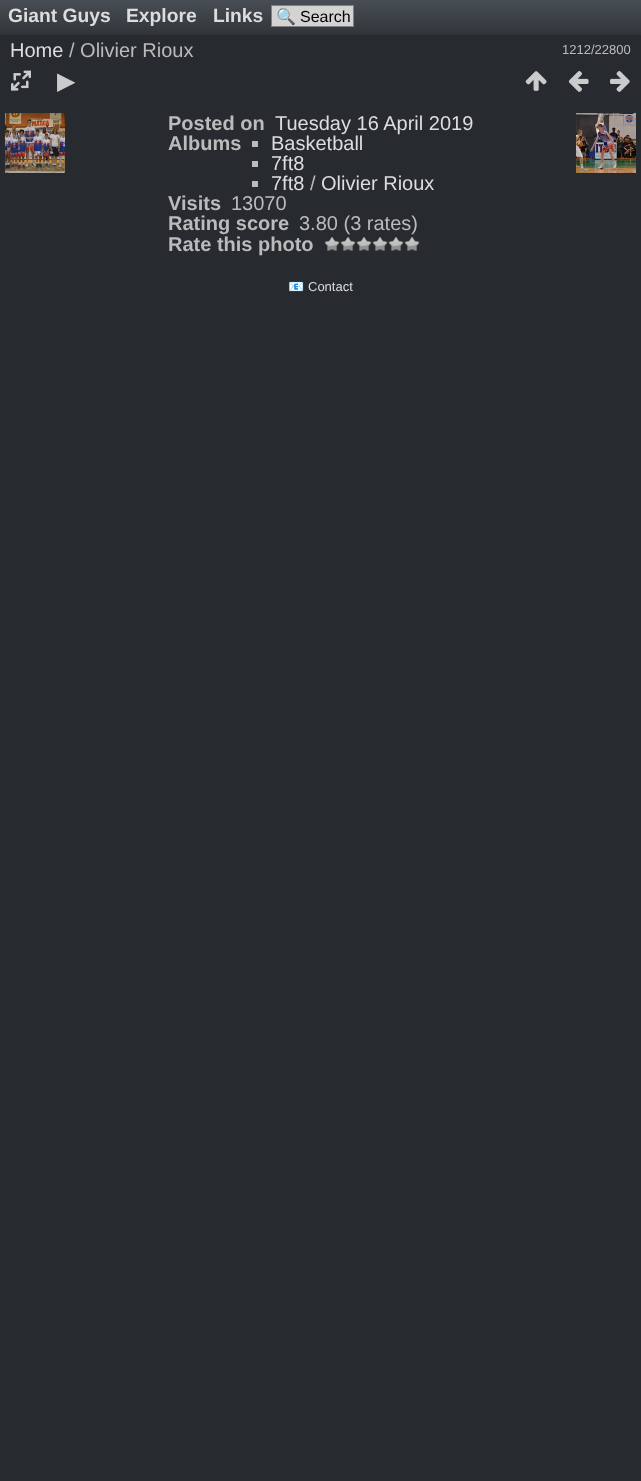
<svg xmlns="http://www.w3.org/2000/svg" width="641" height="1481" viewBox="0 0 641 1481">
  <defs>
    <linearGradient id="g1" gradientUnits="userSpaceOnUse" x1="321" y1="0" x2="321" y2="35"><stop offset="0" stop-color="#484e55"/><stop offset="0.6" stop-color="#3a3f44"/><stop offset="1" stop-color="#313539"/></linearGradient>
  </defs>
  <rect width="100%" height="100%" fill="#272b30"/>
  <rect x="0" y="0" width="641" height="35" fill="url(#g1)"/>
  <text x="8" y="22" font-family="Liberation Sans" font-size="19.25" font-weight="bold" fill="#dddddd">Giant Guys</text>
  <text x="126" y="22" font-family="Liberation Sans" font-size="19.25" font-weight="bold" fill="#dddddd">Explore</text>
  <text x="213" y="22" font-family="Liberation Sans" font-size="19.25" font-weight="bold" fill="#dddddd">Links</text>
  <rect x="271.5" y="5.5" width="82" height="21" fill="#d3d3d3" stroke="#808080"/>
  <text x="276" y="22" font-family="Noto Color Emoji" font-size="16" fill="#000000">🔍</text>
  <text x="300" y="22" font-family="Liberation Sans" font-size="16" fill="#000000">Search</text>
  <text x="10" y="57" font-family="Liberation Sans" font-size="20" fill="#dddddd">Home</text>
  <text x="69" y="57" font-family="Liberation Sans" font-size="20" fill="#bbbbbb">/ Olivier Rioux</text>
  <text x="562" y="54" font-family="Liberation Sans" font-size="13" fill="#bbbbbb">1212/22800</text>
  <image x="11" y="70" width="20" height="21" href="img1.png"/>
  <text x="57" y="89" font-family="DejaVu Sans" font-size="24" fill="#cbcbcc">▶</text>
  <image x="525" y="71" width="22" height="20" href="img2.png"/>
  <image x="568" y="71" width="21" height="21" href="img3.png"/>
  <image x="610" y="71" width="20" height="21" href="img4.png"/>
  <image x="5" y="113" width="60" height="60" href="img5.png"/>
  <image x="576" y="113" width="60" height="60" href="img6.png"/>
  <text x="168" y="130" font-family="Liberation Sans" font-size="20" font-weight="bold" fill="#bbbbbb">Posted on</text>
  <text x="275" y="130" font-family="Liberation Sans" font-size="20" fill="#dddddd">Tuesday 16 April 2019</text>
  <text x="168" y="150" font-family="Liberation Sans" font-size="20" font-weight="bold" fill="#bbbbbb">Albums</text>
  <rect x="252" y="141" width="6" height="6" fill="#bbbbbb"/>
  <text x="271" y="150" font-family="Liberation Sans" font-size="20" fill="#dddddd">Basketball</text>
  <rect x="252" y="161" width="6" height="6" fill="#bbbbbb"/>
  <text x="271" y="170" font-family="Liberation Sans" font-size="20" fill="#dddddd">7ft8</text>
  <rect x="252" y="181" width="6" height="6" fill="#bbbbbb"/>
  <text x="271" y="190" font-family="Liberation Sans" font-size="20" fill="#dddddd">7ft8</text>
  <text x="310" y="190" font-family="Liberation Sans" font-size="20" fill="#bbbbbb">/</text>
  <text x="321" y="190" font-family="Liberation Sans" font-size="20" fill="#dddddd">Olivier Rioux</text>
  <text x="168" y="210" font-family="Liberation Sans" font-size="20" font-weight="bold" fill="#bbbbbb">Visits</text>
  <text x="231" y="210" font-family="Liberation Sans" font-size="20" fill="#bbbbbb">13070</text>
  <text x="168" y="230" font-family="Liberation Sans" font-size="20" font-weight="bold" fill="#bbbbbb">Rating score</text>
  <text x="299" y="230" font-family="Liberation Sans" font-size="20" fill="#bbbbbb">3.80 (3 rates)</text>
  <text x="168" y="251" font-family="Liberation Sans" font-size="20" font-weight="bold" fill="#bbbbbb">Rate this photo</text>
  <image x="324" y="237" width="16" height="14" href="img7.png"/>
  <image x="340" y="237" width="16" height="14" href="img7.png"/>
  <image x="356" y="237" width="16" height="14" href="img7.png"/>
  <image x="372" y="237" width="16" height="14" href="img7.png"/>
  <image x="388" y="237" width="16" height="14" href="img7.png"/>
  <image x="404" y="237" width="16" height="14" href="img7.png"/>
  <text x="288" y="291" font-family="Noto Color Emoji" font-size="13" fill="#dddddd">📧</text>
  <text x="308" y="291" font-family="Liberation Sans" font-size="13" fill="#dddddd">Contact</text>
</svg>
